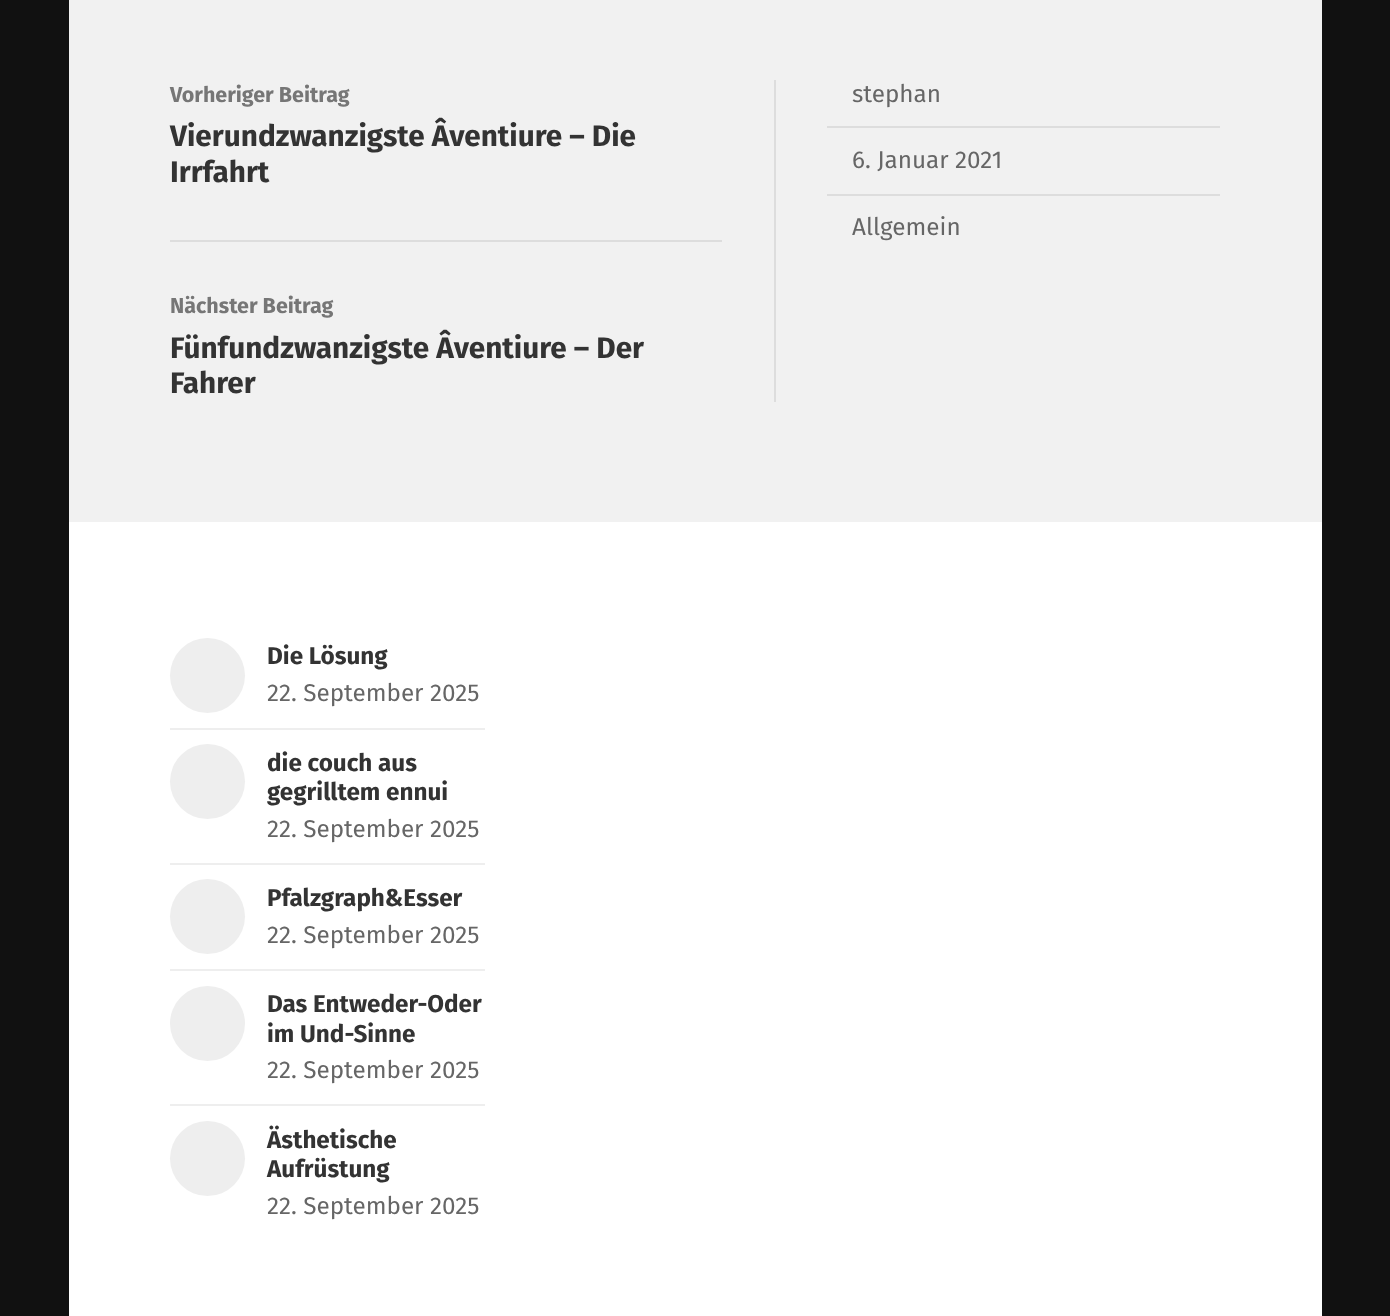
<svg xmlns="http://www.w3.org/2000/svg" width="1390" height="1316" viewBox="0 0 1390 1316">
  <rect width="100%" height="100%" fill="#111111"/>
  <rect x="69" y="522" width="1253" height="794" fill="#ffffff"/>
  <rect x="69" y="0" width="1253" height="522" fill="#f1f1f1"/>
  <text x="170" y="102" font-family="Fira Sans" font-size="21.5" font-weight="bold" fill="#767676">Vorheriger Beitrag</text>
  <text x="170" y="146" font-family="Fira Sans" font-size="29.75" font-weight="bold" fill="#333333">Vierundzwanzigste Âventiure – Die</text>
  <text x="170" y="182" font-family="Fira Sans" font-size="29.75" font-weight="bold" fill="#333333">Irrfahrt</text>
  <rect x="170" y="240" width="552" height="2" fill="#dddddd"/>
  <text x="170" y="313" font-family="Fira Sans" font-size="21.5" font-weight="bold" fill="#767676">Nächster Beitrag</text>
  <text x="170" y="358" font-family="Fira Sans" font-size="29.75" font-weight="bold" fill="#333333">Fünfundzwanzigste Âventiure – Der</text>
  <text x="170" y="393" font-family="Fira Sans" font-size="29.75" font-weight="bold" fill="#333333">Fahrer</text>
  <rect x="774" y="80" width="2" height="322" fill="#dddddd"/>
  <text x="852" y="102" font-family="Fira Sans" font-size="24.25" fill="#666666">stephan</text>
  <rect x="827" y="126" width="393" height="2" fill="#dddddd"/>
  <text x="852" y="168" font-family="Fira Sans" font-size="24.25" fill="#666666">6. Januar 2021</text>
  <rect x="827" y="194" width="393" height="2" fill="#dddddd"/>
  <text x="852" y="235" font-family="Fira Sans" font-size="24.25" fill="#666666">Allgemein</text>
  <rect x="170" y="728" width="315" height="2" fill="#eeeeee"/>
  <circle cx="207.5" cy="675.5" r="37.5" fill="#eeeeee"/>
  <text x="267" y="664" font-family="Fira Sans" font-size="24.25" font-weight="bold" fill="#333333">Die Lösung</text>
  <text x="267" y="701" font-family="Fira Sans" font-size="24.25" fill="#666666">22. September 2025</text>
  <rect x="170" y="863" width="315" height="2" fill="#eeeeee"/>
  <circle cx="207.5" cy="781.5" r="37.5" fill="#eeeeee"/>
  <text x="267" y="771" font-family="Fira Sans" font-size="24.25" font-weight="bold" fill="#333333">die couch aus</text>
  <text x="267" y="800" font-family="Fira Sans" font-size="24.25" font-weight="bold" fill="#333333">gegrilltem ennui</text>
  <text x="267" y="837" font-family="Fira Sans" font-size="24.25" fill="#666666">22. September 2025</text>
  <rect x="170" y="969" width="315" height="2" fill="#eeeeee"/>
  <circle cx="207.5" cy="916.5" r="37.5" fill="#eeeeee"/>
  <text x="267" y="906" font-family="Fira Sans" font-size="24.25" font-weight="bold" fill="#333333">Pfalzgraph&amp;Esser</text>
  <text x="267" y="943" font-family="Fira Sans" font-size="24.25" fill="#666666">22. September 2025</text>
  <rect x="170" y="1104" width="315" height="2" fill="#eeeeee"/>
  <circle cx="207.5" cy="1023.5" r="37.5" fill="#eeeeee"/>
  <text x="267" y="1012" font-family="Fira Sans" font-size="24.25" font-weight="bold" fill="#333333">Das Entweder-Oder</text>
  <text x="267" y="1042" font-family="Fira Sans" font-size="24.25" font-weight="bold" fill="#333333">im Und-Sinne</text>
  <text x="267" y="1078" font-family="Fira Sans" font-size="24.25" fill="#666666">22. September 2025</text>
  <circle cx="207.5" cy="1158.5" r="37.5" fill="#eeeeee"/>
  <text x="267" y="1148" font-family="Fira Sans" font-size="24.25" font-weight="bold" fill="#333333">Ästhetische</text>
  <text x="267" y="1177" font-family="Fira Sans" font-size="24.25" font-weight="bold" fill="#333333">Aufrüstung</text>
  <text x="267" y="1214" font-family="Fira Sans" font-size="24.25" fill="#666666">22. September 2025</text>
</svg>
